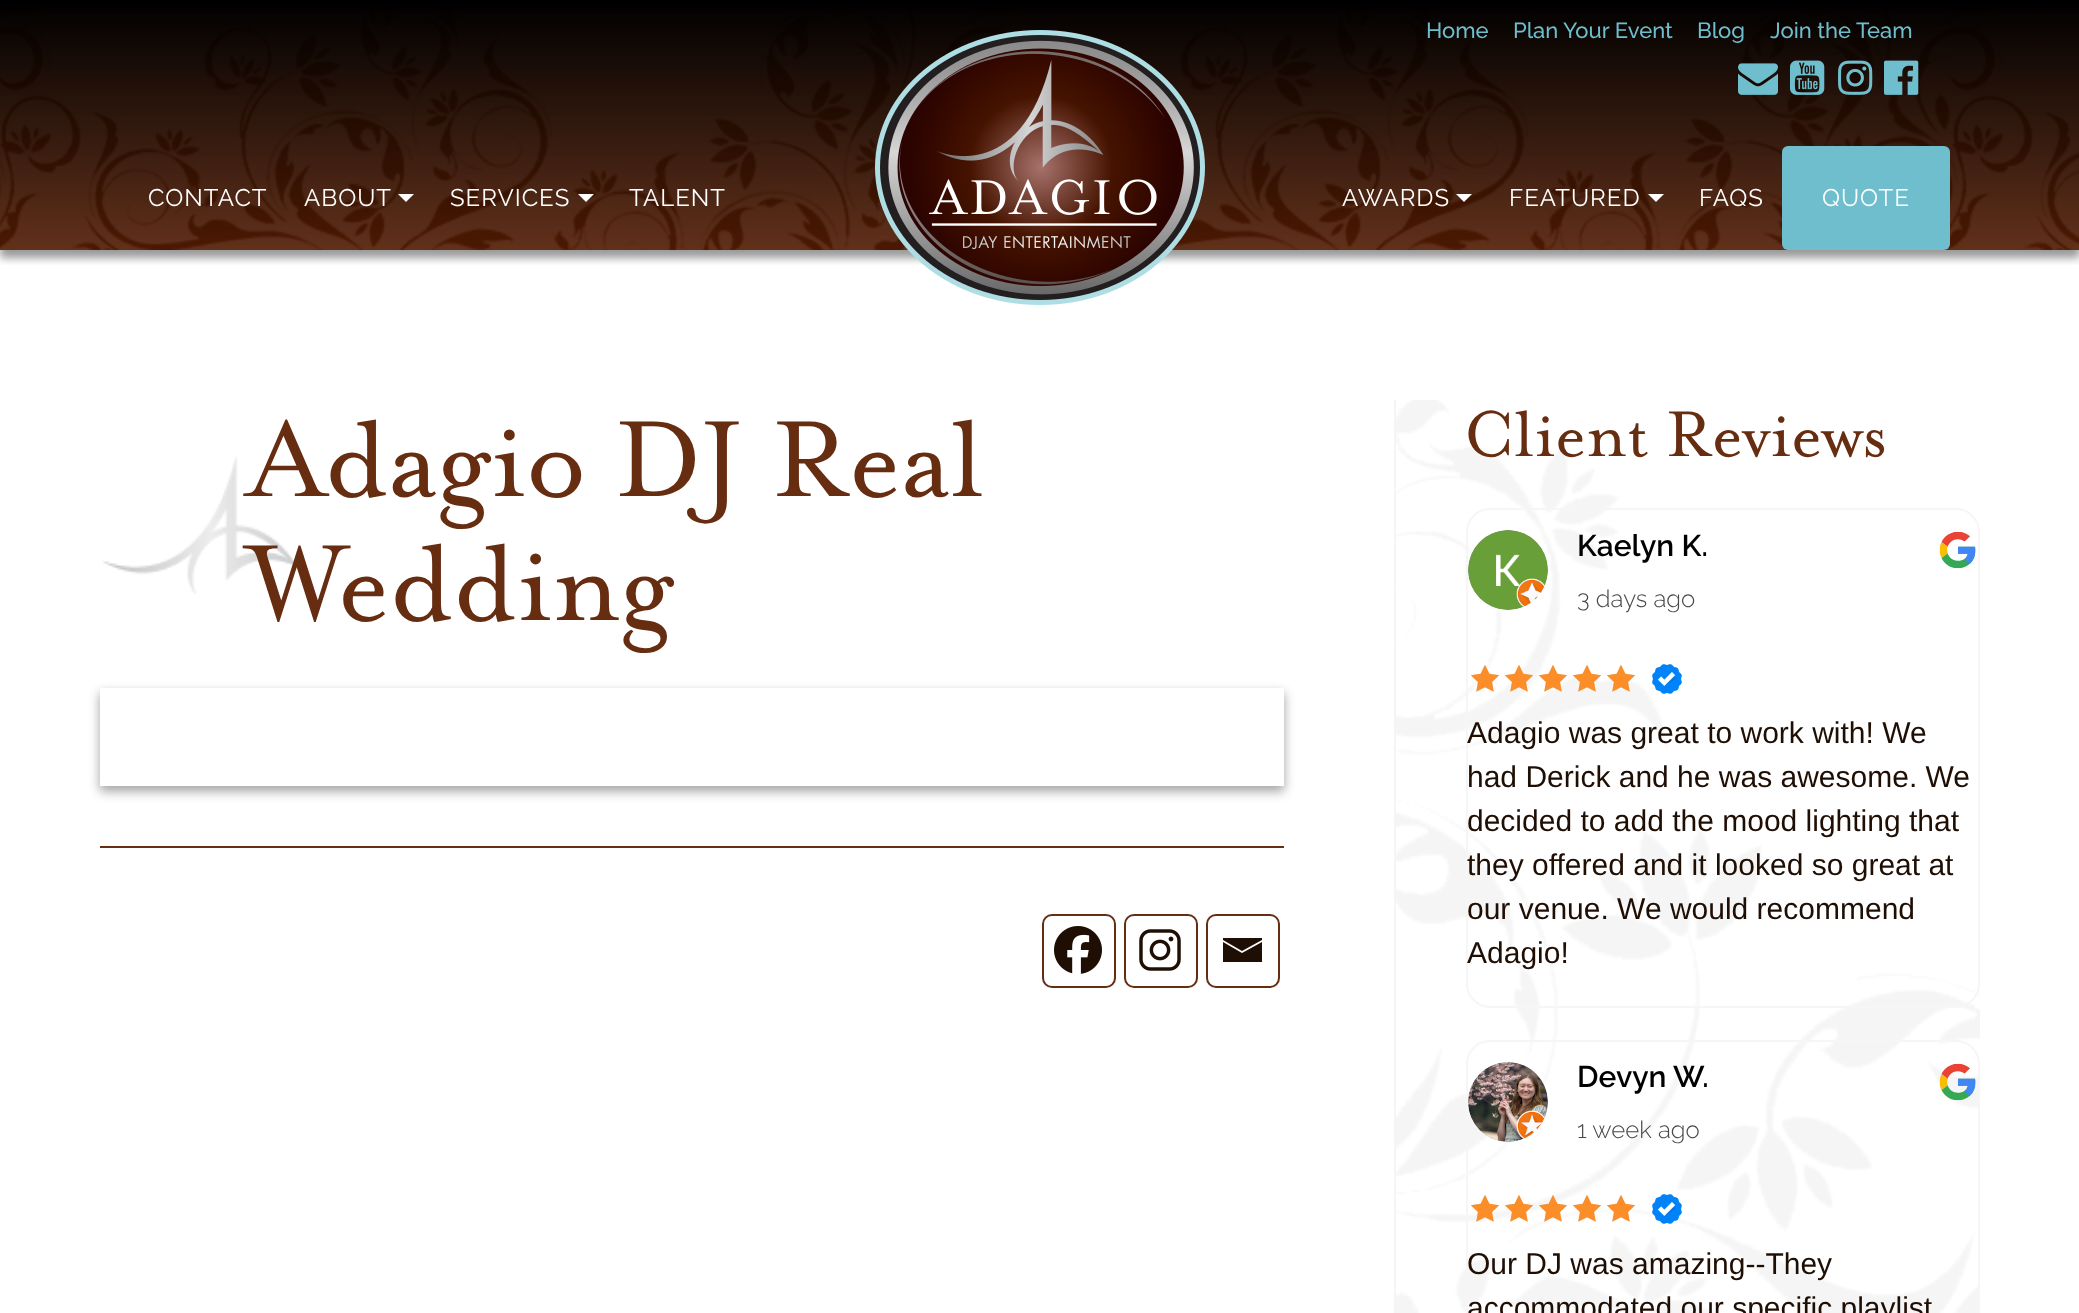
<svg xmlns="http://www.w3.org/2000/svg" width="2079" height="1313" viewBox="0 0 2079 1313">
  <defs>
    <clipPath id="clip1"><rect x="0" y="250" width="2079" height="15"/></clipPath>
    <filter id="blur1" x="-50%" y="-200%" width="200%" height="500%"><feGaussianBlur stdDeviation="4"/></filter>
    <clipPath id="clip2"><path d="M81 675H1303V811H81ZM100 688H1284V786H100Z" clip-rule="evenodd"/></clipPath>
    <filter id="blur2" x="-50%" y="-200%" width="200%" height="500%"><feGaussianBlur stdDeviation="6"/></filter>
    <clipPath id="clip3"><path d="M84 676H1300V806H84ZM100 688H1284V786H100Z" clip-rule="evenodd"/></clipPath>
    <filter id="blur3" x="-50%" y="-200%" width="200%" height="500%"><feGaussianBlur stdDeviation="5"/></filter>
  </defs>
  <rect width="100%" height="100%" fill="#ffffff"/>
  <g clip-path="url(#clip1)">
    <rect x="0" y="8" width="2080" height="250" fill="#000000" fill-opacity="0.4" filter="url(#blur1)"/>
  </g>
  <image x="0" y="0" width="2079" height="250" href="img1.png"/>
  <text x="1426" y="38" font-family="Raleway" font-size="22" font-weight="500" fill="#6ebecd">Home</text>
  <text x="1513" y="38" font-family="Raleway" font-size="22" font-weight="500" fill="#6ebecd">Plan Your Event</text>
  <text x="1697" y="38" font-family="Raleway" font-size="22" font-weight="500" fill="#6ebecd">Blog</text>
  <text x="1770" y="38" font-family="Raleway" font-size="22" font-weight="500" fill="#6ebecd">Join the Team</text>
  <image x="1738" y="63" width="40" height="32" href="img2.png"/>
  <image x="1790" y="60" width="35" height="35" href="img3.png"/>
  <image x="1838" y="60" width="35" height="35" href="img4.png"/>
  <image x="1884" y="60" width="35" height="35" href="img5.png"/>
  <text x="148" y="206" font-family="Raleway" font-size="24" letter-spacing="1" fill="#ffffff">CONTACT</text>
  <text x="304" y="206" font-family="Raleway" font-size="24" letter-spacing="1" fill="#ffffff">ABOUT</text>
  <path d="M398 194H414L406 202Z" fill="#ffffff"/>
  <text x="450" y="206" font-family="Raleway" font-size="24" letter-spacing="1" fill="#ffffff">SERVICES</text>
  <path d="M578 194H594L586 202Z" fill="#ffffff"/>
  <text x="629" y="206" font-family="Raleway" font-size="24" letter-spacing="1" fill="#ffffff">TALENT</text>
  <image x="875" y="30" width="330" height="275" href="img6.png"/>
  <text x="1342" y="206" font-family="Raleway" font-size="24" letter-spacing="1" fill="#ffffff">AWARDS</text>
  <path d="M1456 194H1472L1464 202Z" fill="#ffffff"/>
  <text x="1509" y="206" font-family="Raleway" font-size="24" letter-spacing="1" fill="#ffffff">FEATURED</text>
  <path d="M1648 194H1664L1656 202Z" fill="#ffffff"/>
  <text x="1699" y="206" font-family="Raleway" font-size="24" letter-spacing="1" fill="#ffffff">FAQS</text>
  <rect x="1782" y="146" width="168" height="104" rx="6" fill="#6ebecd"/>
  <text x="1822" y="206" font-family="Raleway" font-size="24" letter-spacing="1" fill="#ffffff">QUOTE</text>
  <image x="102" y="456" width="195" height="138" href="img7.png"/>
  <text x="248" y="496" font-family="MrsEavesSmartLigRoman" font-size="124" fill="#672d11">Adagio DJ Real</text>
  <text x="248" y="620" font-family="MrsEavesSmartLigRoman" font-size="124" fill="#672d11">Wedding</text>
  <g clip-path="url(#clip2)">
    <rect x="100" y="694" width="1184" height="98" fill="#000000" fill-opacity="0.23" filter="url(#blur2)"/>
  </g>
  <g clip-path="url(#clip3)">
    <rect x="100" y="692" width="1184" height="98" fill="#000000" fill-opacity="0.16" filter="url(#blur3)"/>
  </g>
  <rect x="100" y="846" width="1184" height="2" fill="#672d11"/>
  <rect x="1043" y="915" width="72" height="72" rx="9" fill="none" stroke="#672d11" stroke-width="2"/>
  <image x="1054" y="926" width="48" height="48" href="img8.png"/>
  <rect x="1125" y="915" width="72" height="72" rx="9" fill="none" stroke="#672d11" stroke-width="2"/>
  <image x="1139" y="929" width="42" height="42" href="img9.png"/>
  <rect x="1207" y="915" width="72" height="72" rx="9" fill="none" stroke="#672d11" stroke-width="2"/>
  <path d="M1221 938H1262V940L1242 951L1223 940V938M1223 942L1242 953L1262 942V962H1223V942" fill="#1f0e04"/>
  <image x="1396" y="400" width="584" height="913" href="img10.png"/>
  <rect x="1394" y="400" width="2" height="913" fill="#f5f5f5"/>
  <text x="1465" y="456" font-family="MrsEavesSmartLigRoman" font-size="74" fill="#672d11">Client Reviews</text>
  <rect x="1467" y="509" width="512" height="498" rx="23" fill="none" stroke="#f6f6f6" stroke-width="2"/>
  <image x="1468" y="530" width="80" height="80" href="img11.png"/>
  <text x="1577" y="556" font-family="Raleway" font-size="30" font-weight="600" fill="#000000">Kaelyn K.</text>
  <text x="1577" y="607" font-family="Raleway" font-size="24" font-weight="300" fill="#474747">3 days ago</text>
  <image x="1939" y="531" width="37" height="38" href="img12.png"/>
  <image x="1471" y="665" width="164" height="27" href="img13.png"/>
  <image x="1471" y="665" width="164" height="27" href="img14.png"/>
  <image x="1652" y="664" width="30" height="30" href="img15.png"/>
  <text x="1467" y="743" font-family="Liberation Sans" font-size="30" fill="#1f0e04">Adagio was great to work with! We</text>
  <text x="1467" y="787" font-family="Liberation Sans" font-size="30" fill="#1f0e04">had Derick and he was awesome. We</text>
  <text x="1467" y="831" font-family="Liberation Sans" font-size="30" fill="#1f0e04">decided to add the mood lighting that</text>
  <text x="1467" y="875" font-family="Liberation Sans" font-size="30" fill="#1f0e04">they offered and it looked so great at</text>
  <text x="1467" y="919" font-family="Liberation Sans" font-size="30" fill="#1f0e04">our venue. We would recommend</text>
  <text x="1467" y="963" font-family="Liberation Sans" font-size="30" fill="#1f0e04">Adagio!</text>
  <rect x="1467" y="1041" width="512" height="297" rx="23" fill="none" stroke="#f6f6f6" stroke-width="2"/>
  <image x="1468" y="1062" width="80" height="80" href="img16.png"/>
  <text x="1577" y="1087" font-family="Raleway" font-size="30" font-weight="600" fill="#000000">Devyn W.</text>
  <text x="1577" y="1138" font-family="Raleway" font-size="24" font-weight="300" fill="#474747">1 week ago</text>
  <image x="1939" y="1063" width="37" height="38" href="img17.png"/>
  <image x="1471" y="1195" width="164" height="27" href="img18.png"/>
  <image x="1471" y="1195" width="164" height="27" href="img19.png"/>
  <image x="1652" y="1194" width="30" height="30" href="img20.png"/>
  <text x="1467" y="1274" font-family="Liberation Sans" font-size="30" fill="#1f0e04">Our DJ was amazing--They</text>
  <text x="1467" y="1318" font-family="Liberation Sans" font-size="30" fill="#1f0e04">accommodated our specific playlist</text>
</svg>
